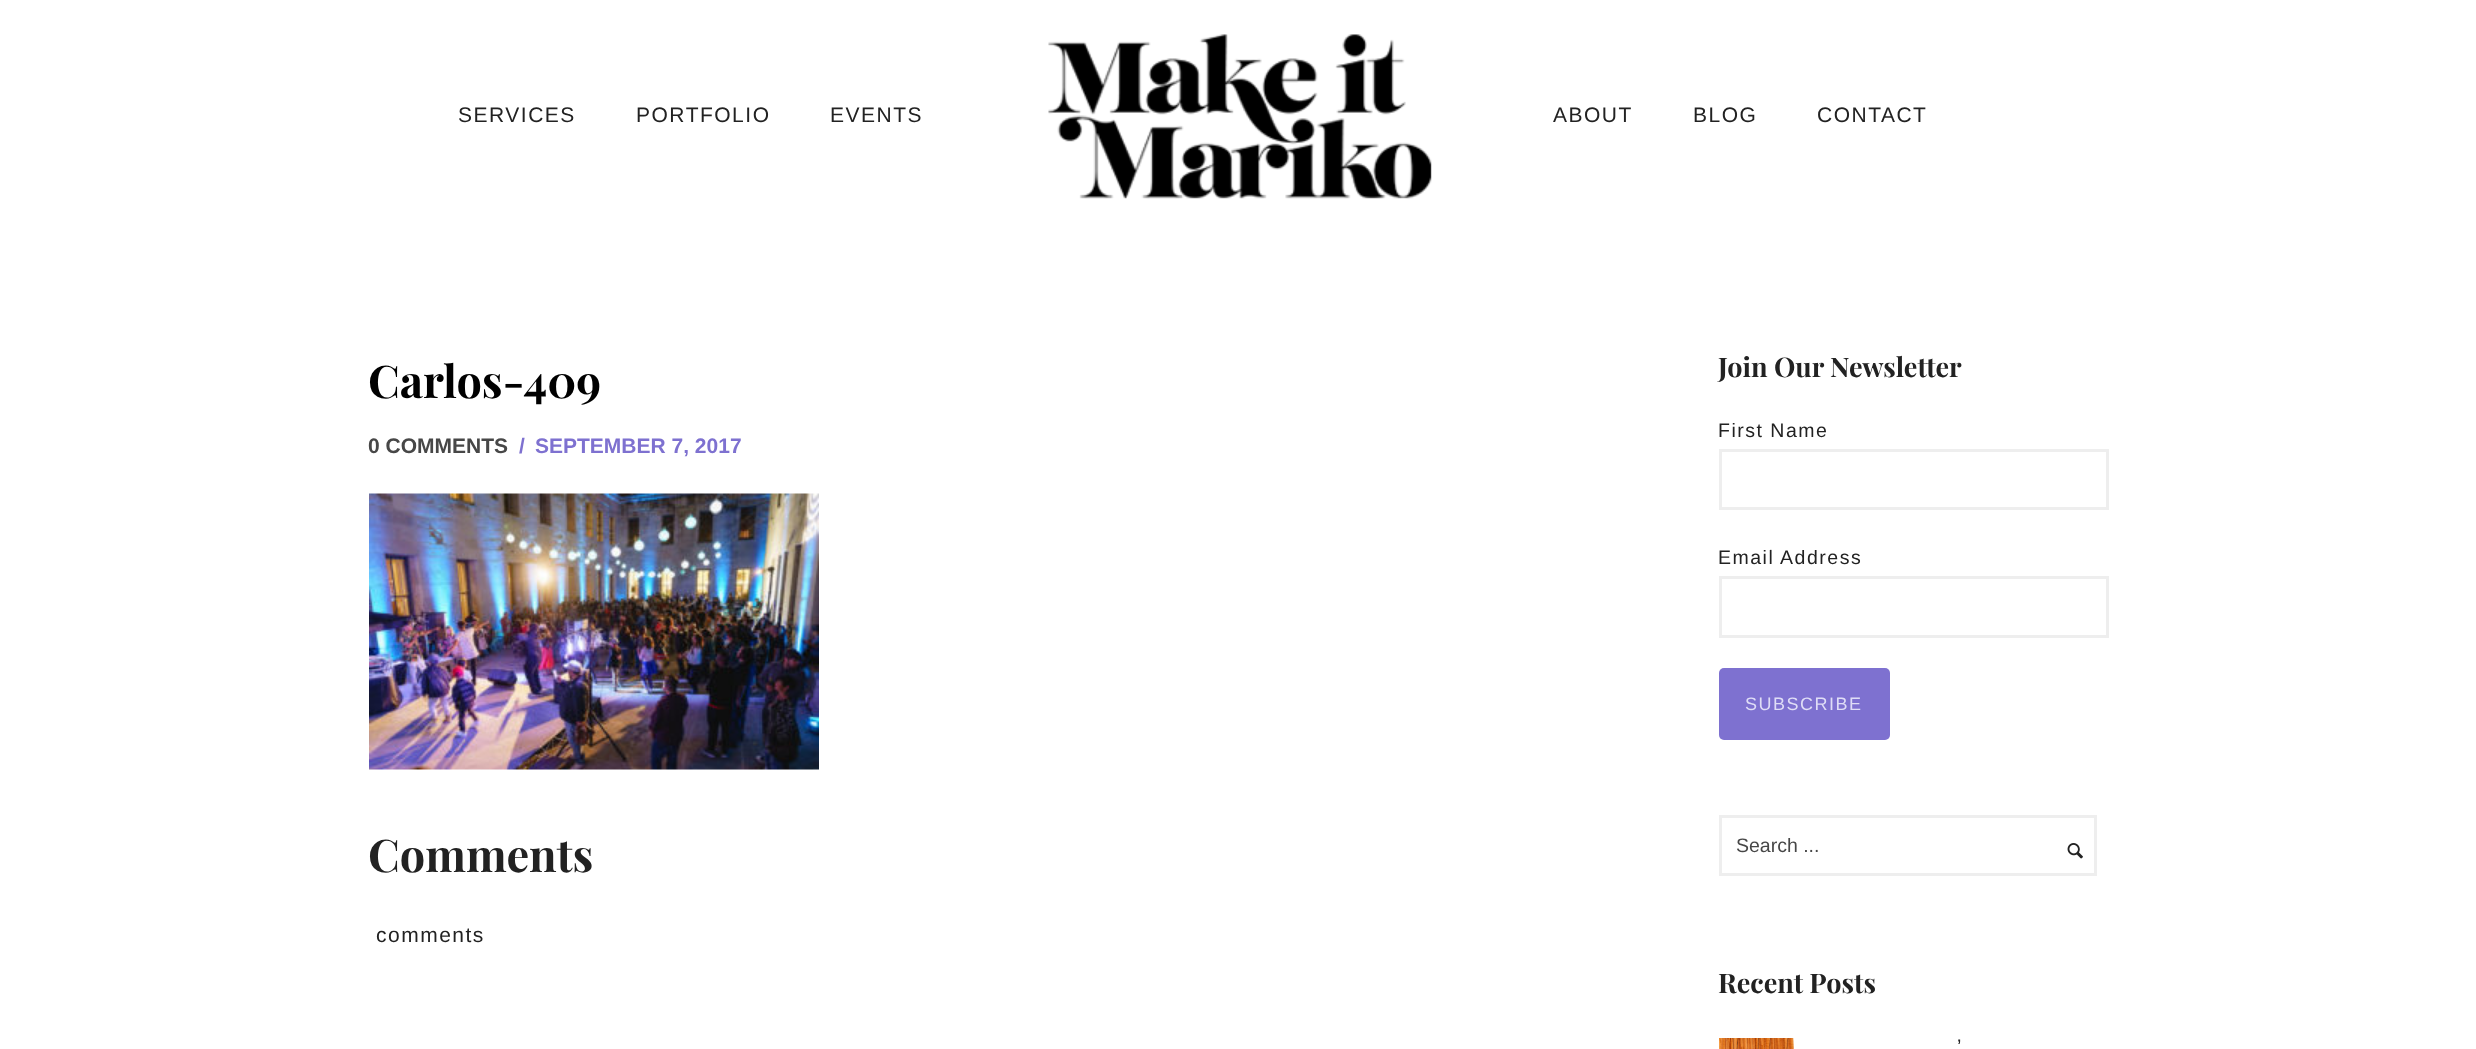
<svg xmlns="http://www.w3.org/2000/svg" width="2476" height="1049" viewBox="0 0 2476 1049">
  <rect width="100%" height="100%" fill="#ffffff"/>
  <text x="458" y="122" font-family="Liberation Sans" font-size="21" letter-spacing="1.5" fill="#222222">SERVICES</text>
  <text x="636" y="122" font-family="Liberation Sans" font-size="21" letter-spacing="1.5" fill="#222222">PORTFOLIO</text>
  <text x="830" y="122" font-family="Liberation Sans" font-size="21" letter-spacing="1.5" fill="#222222">EVENTS</text>
  <image x="1048" y="34" width="384" height="165" href="img1.png"/>
  <text x="1553" y="122" font-family="Liberation Sans" font-size="21" letter-spacing="1.5" fill="#222222">ABOUT</text>
  <text x="1693" y="122" font-family="Liberation Sans" font-size="21" letter-spacing="1.5" fill="#222222">BLOG</text>
  <text x="1817" y="122" font-family="Liberation Sans" font-size="21" letter-spacing="1.5" fill="#222222">CONTACT</text>
  <text x="368" y="398" font-family="Playfair Display" font-size="45" font-weight="bold" fill="#000000">Carlos-409</text>
  <text x="368" y="453" font-family="Liberation Sans" font-size="21" font-weight="bold" fill="#474747">0 COMMENTS</text>
  <text x="519" y="453" font-family="Liberation Sans" font-size="21" font-weight="bold" fill="#7e71d0">/</text>
  <text x="535" y="453" font-family="Liberation Sans" font-size="21" font-weight="bold" fill="#7e71d0">SEPTEMBER 7, 2017</text>
  <image x="369" y="493" width="450" height="277" href="img2.png"/>
  <text x="368" y="872" font-family="Playfair Display" font-size="45" font-weight="bold" fill="#222222">Comments</text>
  <text x="376" y="942" font-family="Liberation Sans" font-size="21" letter-spacing="1.5" fill="#222222">comments</text>
  <text x="1718" y="377" font-family="Playfair Display" font-size="27" font-weight="bold" fill="#222222">Join Our Newsletter</text>
  <text x="1718" y="437" font-family="Liberation Sans" font-size="19.5" letter-spacing="1.5" fill="#222222">First Name</text>
  <rect x="1720.5" y="450.5" width="387" height="58" fill="none" stroke="#eeeeee" stroke-width="3"/>
  <text x="1718" y="564" font-family="Liberation Sans" font-size="19.5" letter-spacing="1.5" fill="#222222">Email Address</text>
  <rect x="1720.5" y="577.5" width="387" height="59" fill="none" stroke="#eeeeee" stroke-width="3"/>
  <rect x="1719" y="668" width="171" height="72" rx="5" fill="#7e71d0"/>
  <text x="1745" y="710" font-family="Liberation Sans" font-size="18" letter-spacing="1.5" fill="#dfddf6">SUBSCRIBE</text>
  <rect x="1720.5" y="816.5" width="375" height="58" fill="none" stroke="#eeeeee" stroke-width="3"/>
  <text x="1736" y="852" font-family="Liberation Sans" font-size="19.5" fill="#474747">Search ...</text>
  <image x="2067" y="843" width="16" height="16" href="img3.png"/>
  <text x="1718" y="993" font-family="Playfair Display" font-size="27" font-weight="bold" fill="#222222">Recent Posts</text>
  <image x="1719" y="1038" width="75" height="11" href="img4.png"/>
  <text x="1957" y="1053" font-family="Liberation Sans" font-size="19.5" letter-spacing="1.5" fill="#222222">’</text>
</svg>
